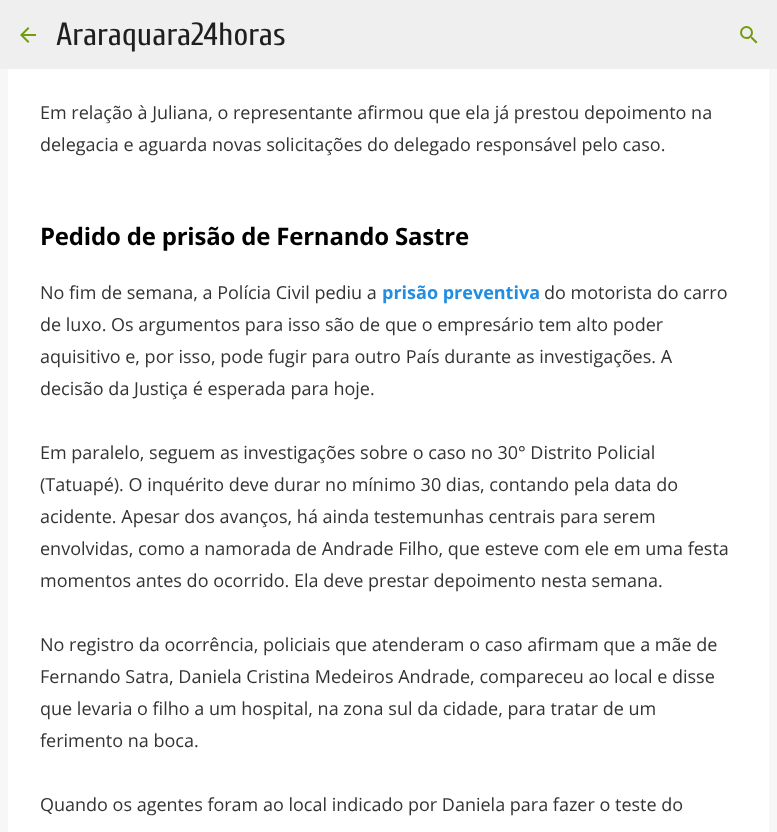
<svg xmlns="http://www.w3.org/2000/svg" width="777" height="832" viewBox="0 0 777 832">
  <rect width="100%" height="100%" fill="#f7f7f7"/>
  <rect x="0" y="0" width="777" height="69" fill="#efefef"/>
  <image x="20" y="27" width="16" height="16" href="img1.png"/>
  <text x="56" y="45" font-family="Cuprum" font-size="32" fill="#1f1f1f">Araraquara24horas</text>
  <image x="740" y="26" width="18" height="18" href="img2.png"/>
  <rect x="8" y="69" width="761" height="763" fill="#ffffff"/>
  <text x="40" y="119" font-family="Open Sans" font-size="18" fill="#333333">Em relação à Juliana, o representante afirmou que ela já prestou depoimento na</text>
  <text x="40" y="151" font-family="Open Sans" font-size="18" fill="#333333">delegacia e aguarda novas solicitações do delegado responsável pelo caso.</text>
  <text x="40" y="245" font-family="Open Sans" font-size="24" font-weight="bold" letter-spacing="-0.2" fill="#000000">Pedido de prisão de Fernando Sastre</text>
  <text x="40" y="299" font-family="Open Sans" font-size="18" fill="#333333">No fim de semana, a Polícia Civil pediu a</text>
  <text x="382" y="299" font-family="Open Sans" font-size="18" font-weight="bold" fill="#228ee1">prisão preventiva</text>
  <text x="544" y="299" font-family="Open Sans" font-size="18" fill="#333333">do motorista do carro</text>
  <text x="40" y="331" font-family="Open Sans" font-size="18" fill="#333333">de luxo. Os argumentos para isso são de que o empresário tem alto poder</text>
  <text x="40" y="363" font-family="Open Sans" font-size="18" fill="#333333">aquisitivo e, por isso, pode fugir para outro País durante as investigações. A</text>
  <text x="40" y="395" font-family="Open Sans" font-size="18" fill="#333333">decisão da Justiça é esperada para hoje.</text>
  <text x="40" y="459" font-family="Open Sans" font-size="18" fill="#333333">Em paralelo, seguem as investigações sobre o caso no 30° Distrito Policial</text>
  <text x="40" y="491" font-family="Open Sans" font-size="18" fill="#333333">(Tatuapé). O inquérito deve durar no mínimo 30 dias, contando pela data do</text>
  <text x="40" y="523" font-family="Open Sans" font-size="18" fill="#333333">acidente. Apesar dos avanços, há ainda testemunhas centrais para serem</text>
  <text x="40" y="555" font-family="Open Sans" font-size="18" fill="#333333">envolvidas, como a namorada de Andrade Filho, que esteve com ele em uma festa</text>
  <text x="40" y="587" font-family="Open Sans" font-size="18" fill="#333333">momentos antes do ocorrido. Ela deve prestar depoimento nesta semana.</text>
  <text x="40" y="651" font-family="Open Sans" font-size="18" fill="#333333">No registro da ocorrência, policiais que atenderam o caso afirmam que a mãe de</text>
  <text x="40" y="683" font-family="Open Sans" font-size="18" fill="#333333">Fernando Satra, Daniela Cristina Medeiros Andrade, compareceu ao local e disse</text>
  <text x="40" y="715" font-family="Open Sans" font-size="18" fill="#333333">que levaria o filho a um hospital, na zona sul da cidade, para tratar de um</text>
  <text x="40" y="747" font-family="Open Sans" font-size="18" fill="#333333">ferimento na boca.</text>
  <text x="40" y="811" font-family="Open Sans" font-size="18" fill="#333333">Quando os agentes foram ao local indicado por Daniela para fazer o teste do</text>
</svg>
